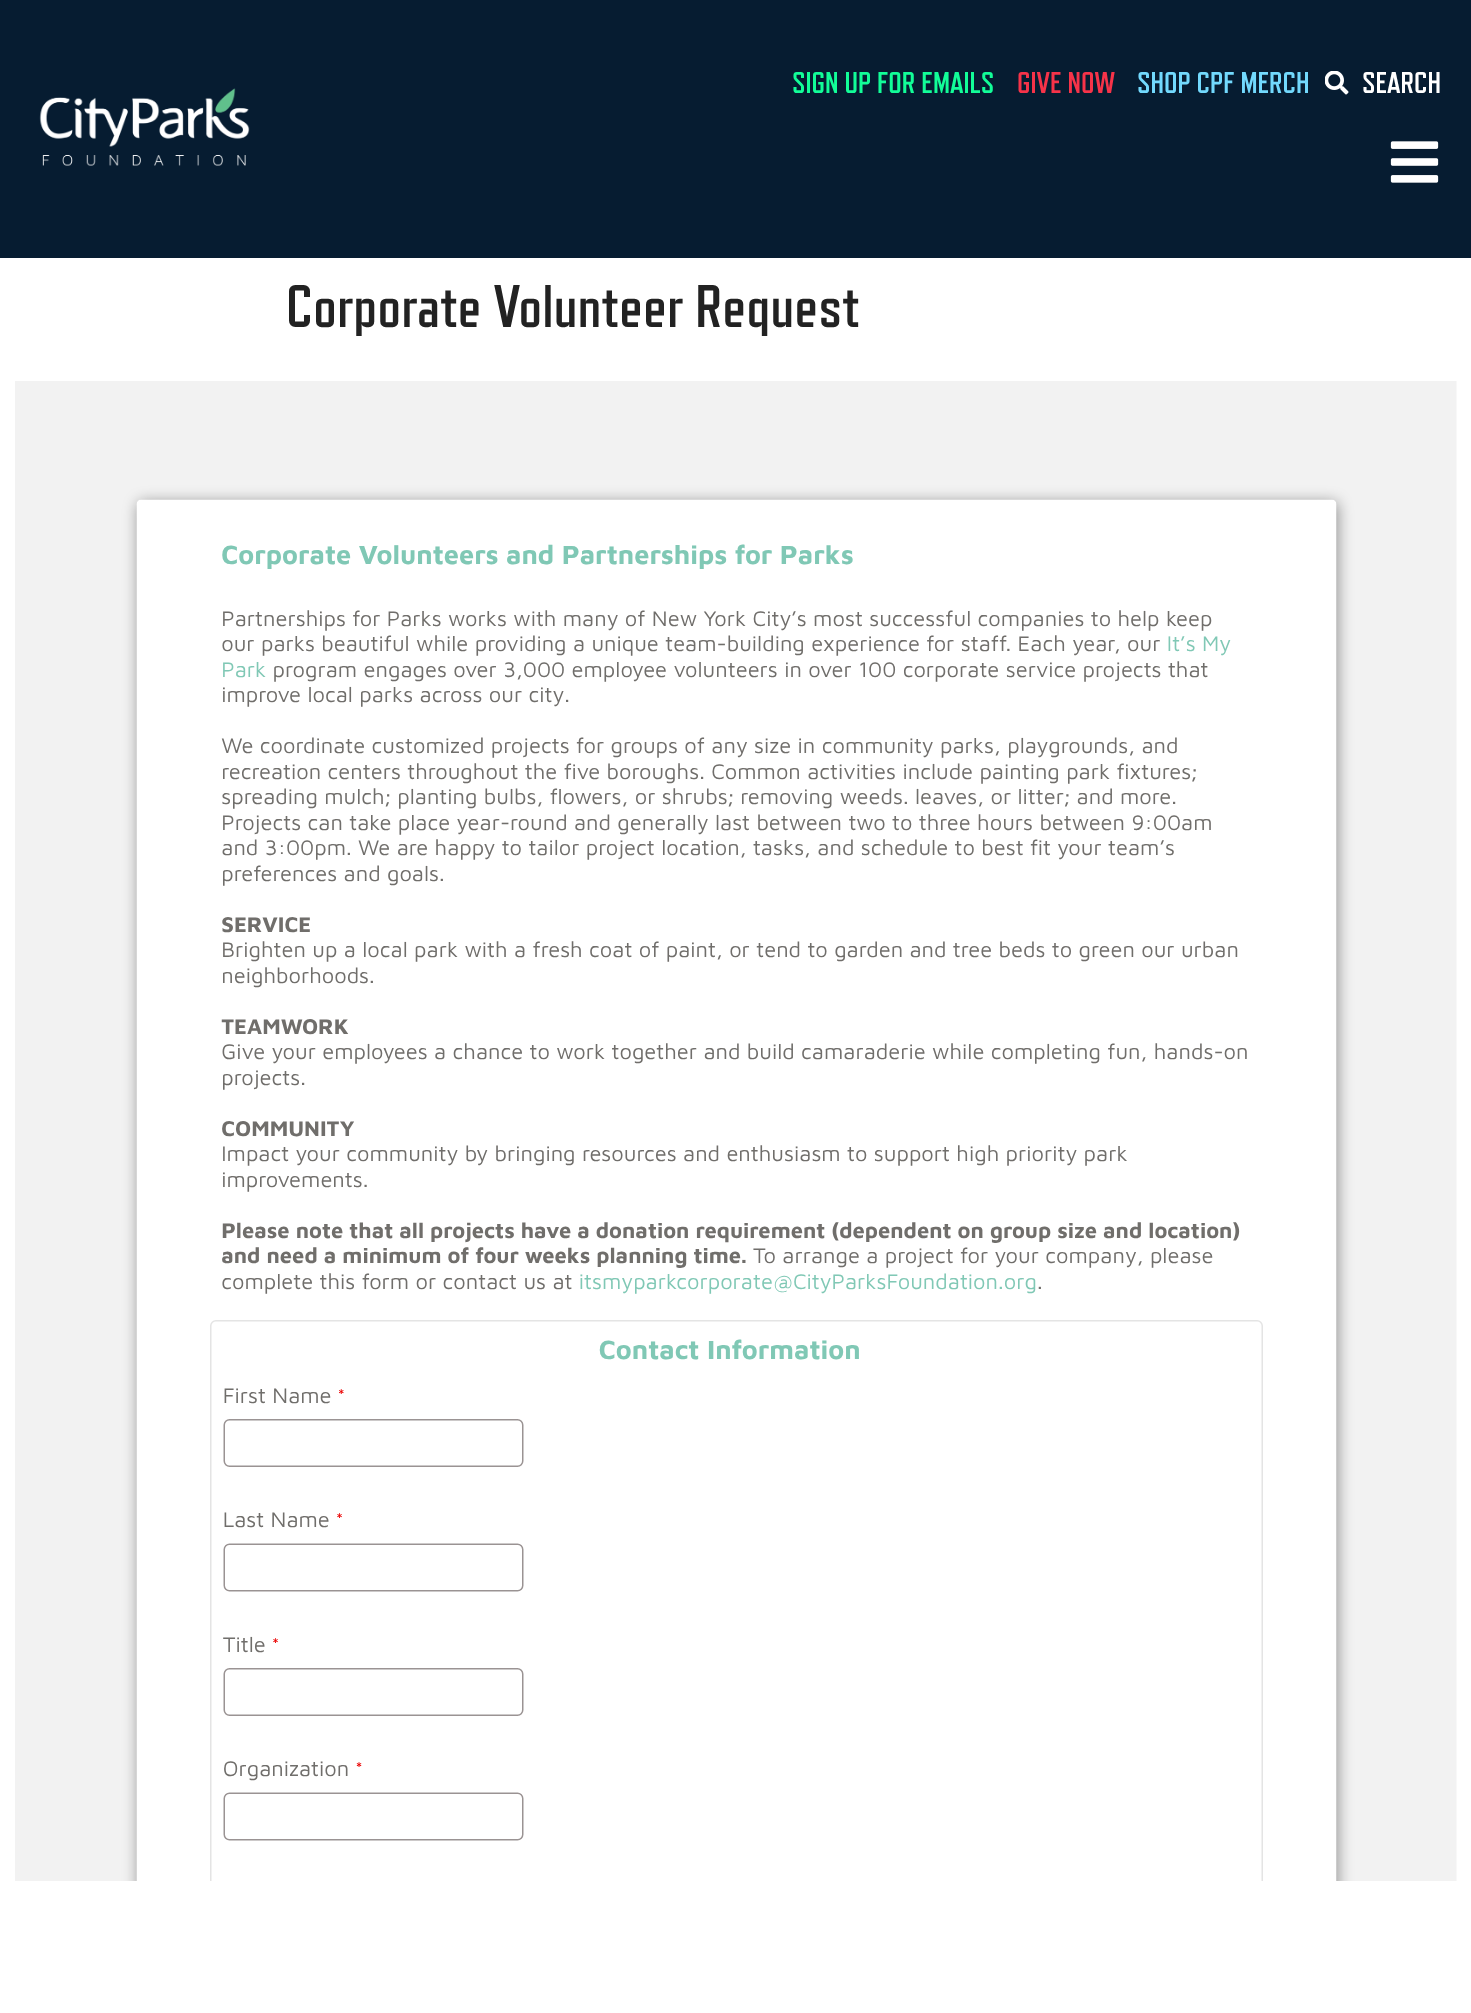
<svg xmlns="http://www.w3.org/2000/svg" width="1471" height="2013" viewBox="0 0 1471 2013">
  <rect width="100%" height="100%" fill="#ffffff"/>
  <rect x="0" y="0" width="1471" height="258" fill="#061c31"/>
  <text x="792" y="93" font-family="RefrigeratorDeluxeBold" font-size="30" font-weight="bold" fill="#12fd98">SIGN UP FOR EMAILS</text>
  <text x="1017" y="93" font-family="RefrigeratorDeluxeBold" font-size="30" font-weight="bold" fill="#f63349">GIVE NOW</text>
  <text x="1137" y="93" font-family="RefrigeratorDeluxeBold" font-size="30" font-weight="bold" fill="#72d9fd">SHOP CPF MERCH</text>
  <image x="1325" y="71" width="24" height="24" href="img1.png"/>
  <text x="1362" y="93" font-family="RefrigeratorDeluxeBold" font-size="30" font-weight="bold" fill="#ffffff">SEARCH</text>
  <image x="1390" y="141" width="49" height="42" href="img2.png"/>
  <image x="39" y="88" width="211" height="78" href="img3.png"/>
  <text x="286" y="327" font-family="RefrigeratorDeluxeBold" font-size="60" font-weight="bold" fill="#222222">Corporate Volunteer Request</text>
  <image x="15" y="381" width="1442" height="1500" href="img4.png"/>
</svg>
